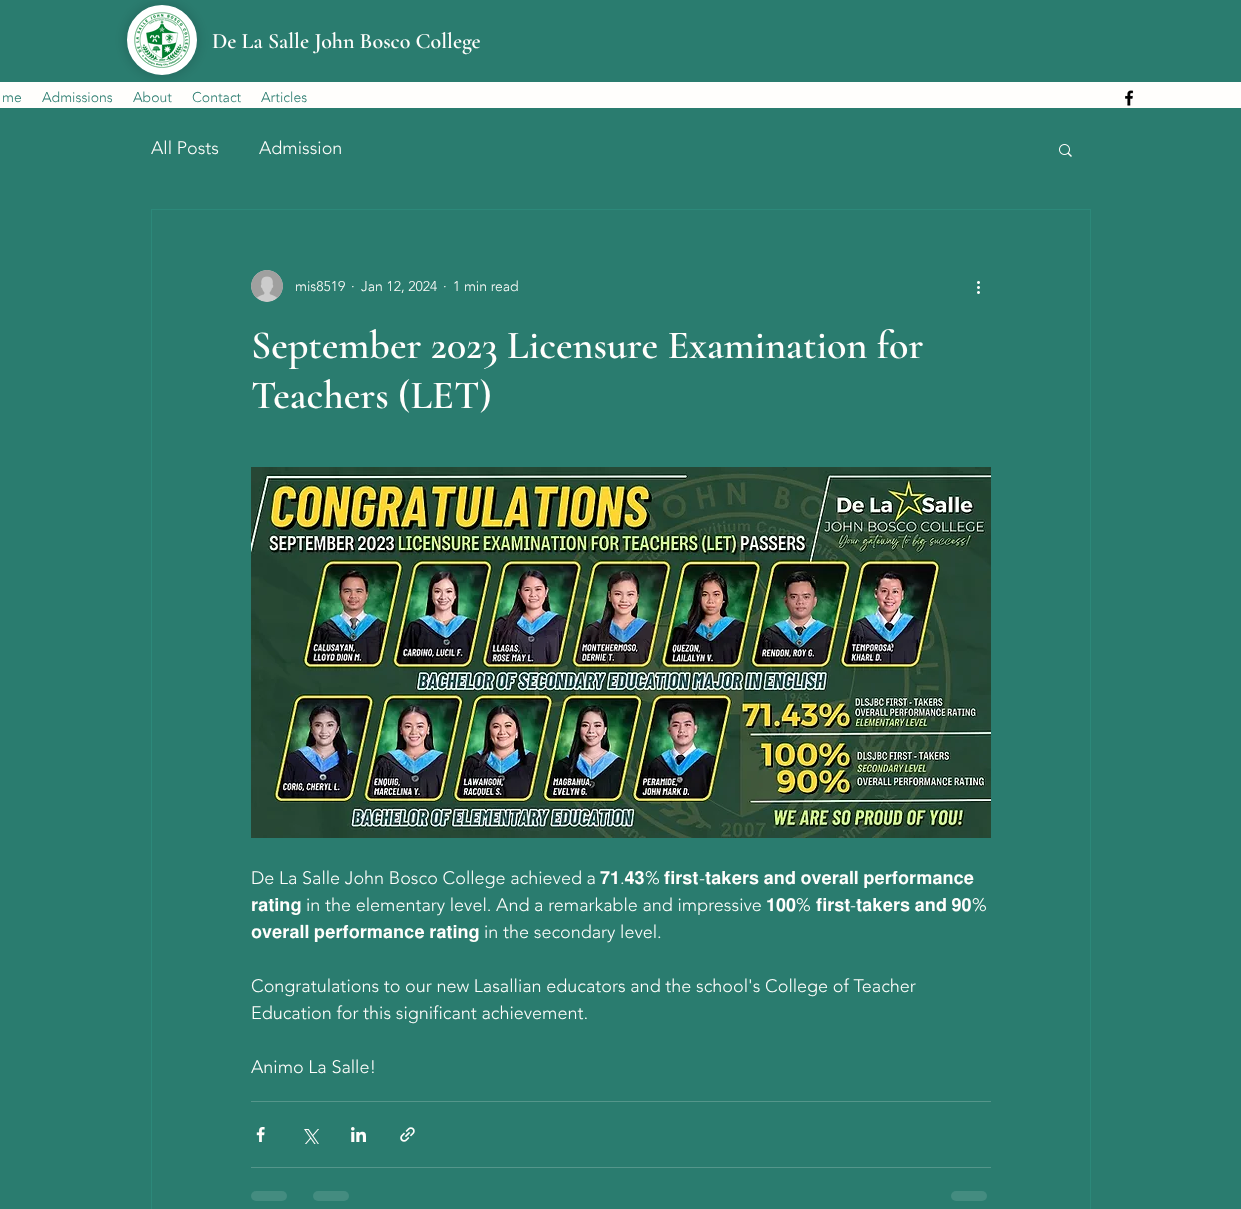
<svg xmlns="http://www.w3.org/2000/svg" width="1241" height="1209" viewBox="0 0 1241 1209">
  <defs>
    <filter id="blur1" x="-50%" y="-200%" width="200%" height="500%"><feGaussianBlur stdDeviation="7"/></filter>
  </defs>
  <rect width="100%" height="100%" fill="#2a7c6f"/>
  <rect x="127" y="5" width="70" height="70" rx="35" fill="#000000" fill-opacity="0.2" filter="url(#blur1)"/>
  <circle cx="162" cy="40" r="32" fill="#ffffff" stroke="#ffffff" stroke-width="6"/>
  <image x="134" y="12" width="56" height="56" href="img1.png"/>
  <text x="212" y="48" font-family="Cormorant Garamond" font-size="22" font-weight="600" fill="#fffefc">De La Salle John Bosco College</text>
  <rect x="0" y="82" width="1241" height="26" fill="#fffefc"/>
  <text x="2" y="102" font-family="'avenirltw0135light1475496'" font-size="14" font-weight="300" fill="#2a7c6f">me</text>
  <text x="42" y="102" font-family="'avenirltw0135light1475496'" font-size="14" font-weight="300" fill="#2a7c6f">Admissions</text>
  <text x="133" y="102" font-family="'avenirltw0135light1475496'" font-size="14" font-weight="300" fill="#2a7c6f">About</text>
  <text x="192" y="102" font-family="'avenirltw0135light1475496'" font-size="14" font-weight="300" fill="#2a7c6f">Contact</text>
  <text x="261" y="102" font-family="'avenirltw0135light1475496'" font-size="14" font-weight="300" fill="#2a7c6f">Articles</text>
  <image x="1125" y="90" width="9" height="16" href="img2.png"/>
  <text x="151" y="154" font-family="'avenirltw0135light1475496'" font-size="18" font-weight="300" fill="#fffefc">All Posts</text>
  <text x="259" y="154" font-family="'avenirltw0135light1475496'" font-size="18" font-weight="300" fill="#fffefc">Admission</text>
  <image x="1059" y="144" width="13" height="13" href="img3.png"/>
  <rect x="151.5" y="209.5" width="939" height="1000" fill="none" stroke="#2c897a"/>
  <image x="251" y="270" width="32" height="32" href="img4.png"/>
  <text x="295" y="291" font-family="'avenirltw0135light1475496'" font-size="14" font-weight="300" fill="#fffefc">mis8519</text>
  <text x="351" y="291" font-family="'avenirltw0135light1475496'" font-size="14" font-weight="300" fill="#fffefc">·</text>
  <text x="361" y="291" font-family="'avenirltw0135light1475496'" font-size="14" font-weight="300" fill="#fffefc">Jan 12, 2024</text>
  <text x="443" y="291" font-family="'avenirltw0135light1475496'" font-size="14" font-weight="300" fill="#fffefc">·</text>
  <text x="453" y="291" font-family="'avenirltw0135light1475496'" font-size="14" font-weight="300" fill="#fffefc">1 min read</text>
  <image x="977" y="281" width="3" height="13" href="img5.png"/>
  <text x="251" y="358" font-family="Cormorant Garamond" font-size="40" font-weight="600" fill="#fffefc">September 2023 Licensure Examination for</text>
  <text x="251" y="408" font-family="Cormorant Garamond" font-size="40" font-weight="600" fill="#fffefc">Teachers (LET)</text>
  <image x="251" y="467" width="740" height="371" href="img6.png"/>
  <text x="251" y="884" font-family="'avenirltw0135light1475496'" font-size="18" font-weight="300" fill="#fffefc">De La Salle John Bosco College achieved a</text>
  <text x="600" y="884" font-family="FreeSans" font-size="18" fill="#fffefc">𝟕𝟏 𝟒𝟑</text>
  <text x="645" y="884" font-family="'avenirltw0135light1475496'" font-size="18" font-weight="300" fill="#fffefc">%</text>
  <text x="664" y="884" font-family="FreeSans" font-size="18" fill="#fffefc">𝐟𝐢𝐫𝐬𝐭</text>
  <text x="699" y="884" font-family="'avenirltw0135light1475496'" font-size="18" font-weight="300" fill="#fffefc">-</text>
  <text x="705" y="884" font-family="FreeSans" font-size="18" fill="#fffefc">𝐭𝐚𝐤𝐞𝐫𝐬 𝐚𝐧𝐝 𝐨𝐯𝐞𝐫𝐚𝐥𝐥 𝐩𝐞𝐫𝐟𝐨𝐫𝐦𝐚𝐧𝐜𝐞</text>
  <text x="620" y="884" font-family="'avenirltw0135light1475496'" font-size="18" font-weight="300" fill="#fffefc">.</text>
  <text x="251" y="911" font-family="FreeSans" font-size="18" fill="#fffefc">𝐫𝐚𝐭𝐢𝐧𝐠</text>
  <text x="306" y="911" font-family="'avenirltw0135light1475496'" font-size="18" font-weight="300" fill="#fffefc">in the elementary level. And a remarkable and impressive</text>
  <text x="766" y="911" font-family="FreeSans" font-size="18" fill="#fffefc">𝟏𝟎𝟎</text>
  <text x="796" y="911" font-family="'avenirltw0135light1475496'" font-size="18" font-weight="300" fill="#fffefc">%</text>
  <text x="816" y="911" font-family="FreeSans" font-size="18" fill="#fffefc">𝐟𝐢𝐫𝐬𝐭</text>
  <text x="850" y="911" font-family="'avenirltw0135light1475496'" font-size="18" font-weight="300" fill="#fffefc">-</text>
  <text x="856" y="911" font-family="FreeSans" font-size="18" fill="#fffefc">𝐭𝐚𝐤𝐞𝐫𝐬 𝐚𝐧𝐝 𝟗𝟎</text>
  <text x="972" y="911" font-family="'avenirltw0135light1475496'" font-size="18" font-weight="300" fill="#fffefc">%</text>
  <text x="251" y="938" font-family="FreeSans" font-size="18" fill="#fffefc">𝐨𝐯𝐞𝐫𝐚𝐥𝐥 𝐩𝐞𝐫𝐟𝐨𝐫𝐦𝐚𝐧𝐜𝐞 𝐫𝐚𝐭𝐢𝐧𝐠</text>
  <text x="484" y="938" font-family="'avenirltw0135light1475496'" font-size="18" font-weight="300" fill="#fffefc">in the secondary level.</text>
  <text x="251" y="992" font-family="'avenirltw0135light1475496'" font-size="18" font-weight="300" fill="#fffefc">Congratulations to our new Lasallian educators and the school's College of Teacher</text>
  <text x="251" y="1019" font-family="'avenirltw0135light1475496'" font-size="18" font-weight="300" fill="#fffefc">Education for this significant achievement.</text>
  <text x="251" y="1073" font-family="'avenirltw0135light1475496'" font-size="18" font-weight="300" fill="#fffefc">Animo La Salle!</text>
  <rect x="251" y="1101" width="740" height="1" fill="#55968b"/>
  <image x="256" y="1127" width="9" height="15" href="img7.png"/>
  <image x="304" y="1129" width="15" height="15" href="img8.png"/>
  <image x="351" y="1127" width="15" height="15" href="img9.png"/>
  <image x="400" y="1127" width="15" height="15" href="img10.png"/>
  <rect x="251" y="1167" width="740" height="1" fill="#55968b"/>
  <rect x="251" y="1191" width="36" height="10" rx="5" fill="#448c80"/>
  <rect x="313" y="1191" width="36" height="10" rx="5" fill="#448c80"/>
  <rect x="951" y="1191" width="36" height="10" rx="5" fill="#448c80"/>
</svg>
